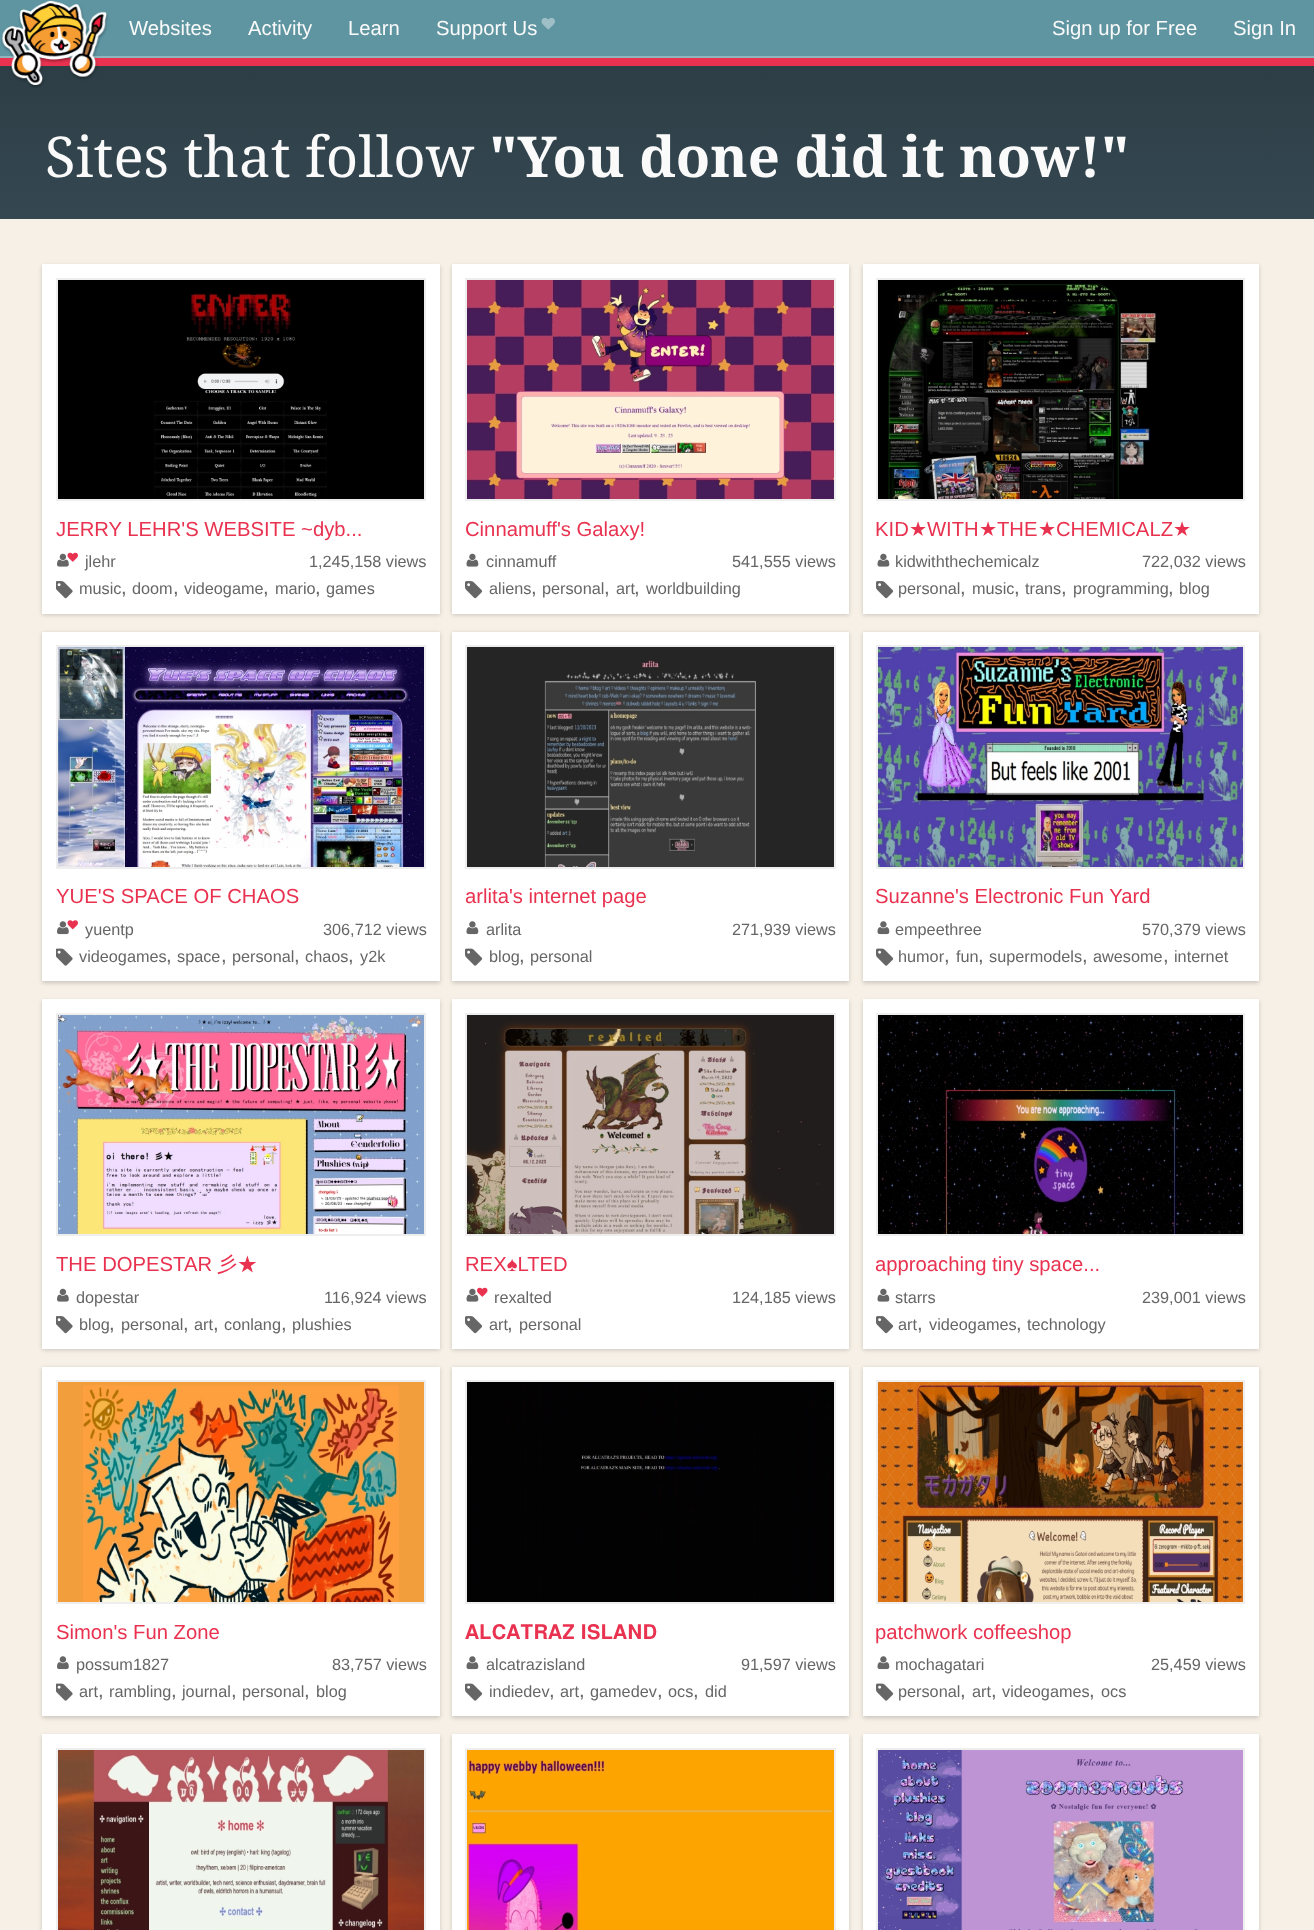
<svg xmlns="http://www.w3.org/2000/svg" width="1314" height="1930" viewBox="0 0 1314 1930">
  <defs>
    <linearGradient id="g1" gradientUnits="userSpaceOnUse" x1="657" y1="33" x2="657" y2="219"><stop offset="0" stop-color="#2b3c43"/><stop offset="1" stop-color="#354751"/></linearGradient>
    <filter id="blur1" x="-50%" y="-200%" width="200%" height="500%"><feGaussianBlur stdDeviation="2"/></filter>
  </defs>
  <rect width="100%" height="100%" fill="#f6f0e6"/>
  <rect x="0" y="58" width="1314" height="8" fill="#e93250"/>
  <rect x="0" y="0" width="1314" height="56" fill="#5e95a1"/>
  <rect x="0" y="56" width="1314" height="2" fill="#92b4bd"/>
  <rect x="0" y="66" width="1314" height="153" fill="url(#g1)"/>
  <image x="1" y="0" width="108" height="88" href="img1.png"/>
  <text x="129" y="35" font-family="Liberation Sans" font-size="20.25" fill="#fafafa">Websites</text>
  <text x="248" y="35" font-family="Liberation Sans" font-size="20.25" fill="#fafafa">Activity</text>
  <text x="348" y="35" font-family="Liberation Sans" font-size="20.25" fill="#fafafa">Learn</text>
  <text x="436" y="35" font-family="Liberation Sans" font-size="20.25" fill="#fafafa">Support Us</text>
  <image x="541" y="18" width="14" height="12" href="img2.png"/>
  <text x="1052" y="35" font-family="Liberation Sans" font-size="20.25" fill="#fafafa">Sign up for Free</text>
  <text x="1233" y="35" font-family="Liberation Sans" font-size="20.25" fill="#fafafa">Sign In</text>
  <text x="45" y="177" font-family="Droid Serif" font-size="56.25" fill="#fafafa">Sites that follow</text>
  <text x="489" y="177" font-family="Droid Serif" font-size="56.25" font-weight="bold" fill="#fafafa">"You done did it now!"</text>
  <rect x="42" y="266" width="398" height="349" fill="#000000" fill-opacity="0.18" filter="url(#blur1)"/>
  <rect x="42" y="264" width="398" height="350" fill="#ffffff"/>
  <image x="58" y="280" width="366" height="219" href="img3.png"/>
  <rect x="57" y="279" width="368" height="221" fill="none" stroke="#eeeeee" stroke-width="2"/>
  <text x="56" y="536" font-family="Liberation Sans" font-size="20.25" fill="#e93250">JERRY LEHR'S WEBSITE ~dyb...</text>
  <image x="57" y="553" width="12" height="14" href="img4.png"/>
  <image x="67" y="552" width="11" height="10" href="img5.png"/>
  <text x="85" y="567" font-family="Liberation Sans" font-size="16.25" fill="#666666">jlehr</text>
  <text x="309" y="567" font-family="Liberation Sans" font-size="16.25" fill="#666666">1,245,158 views</text>
  <image x="56" y="581" width="17" height="18" href="img6.png"/>
  <text x="79" y="594" font-family="Liberation Sans" font-size="16.25" fill="#666666">music</text>
  <text x="121" y="594" font-family="Liberation Sans" font-size="20.25" fill="#666666">,</text>
  <text x="132" y="594" font-family="Liberation Sans" font-size="16.25" fill="#666666">doom</text>
  <text x="173" y="594" font-family="Liberation Sans" font-size="20.25" fill="#666666">,</text>
  <text x="184" y="594" font-family="Liberation Sans" font-size="16.25" fill="#666666">videogame</text>
  <text x="263" y="594" font-family="Liberation Sans" font-size="20.25" fill="#666666">,</text>
  <text x="275" y="594" font-family="Liberation Sans" font-size="16.25" fill="#666666">mario</text>
  <text x="315" y="594" font-family="Liberation Sans" font-size="20.25" fill="#666666">,</text>
  <text x="326" y="594" font-family="Liberation Sans" font-size="16.25" fill="#666666">games</text>
  <rect x="452" y="266" width="397" height="349" fill="#000000" fill-opacity="0.18" filter="url(#blur1)"/>
  <rect x="452" y="264" width="397" height="350" fill="#ffffff"/>
  <image x="467" y="280" width="367" height="219" href="img7.png"/>
  <rect x="466" y="279" width="369" height="221" fill="none" stroke="#eeeeee" stroke-width="2"/>
  <text x="465" y="536" font-family="Liberation Sans" font-size="20.25" fill="#e93250">Cinnamuff's Galaxy!</text>
  <image x="466" y="553" width="13" height="14" href="img8.png"/>
  <text x="486" y="567" font-family="Liberation Sans" font-size="16.25" fill="#666666">cinnamuff</text>
  <text x="732" y="567" font-family="Liberation Sans" font-size="16.25" fill="#666666">541,555 views</text>
  <image x="465" y="581" width="18" height="18" href="img9.png"/>
  <text x="489" y="594" font-family="Liberation Sans" font-size="16.25" fill="#666666">aliens</text>
  <text x="531" y="594" font-family="Liberation Sans" font-size="20.25" fill="#666666">,</text>
  <text x="542" y="594" font-family="Liberation Sans" font-size="16.25" fill="#666666">personal</text>
  <text x="604" y="594" font-family="Liberation Sans" font-size="20.25" fill="#666666">,</text>
  <text x="616" y="594" font-family="Liberation Sans" font-size="16.25" fill="#666666">art</text>
  <text x="634" y="594" font-family="Liberation Sans" font-size="20.25" fill="#666666">,</text>
  <text x="646" y="594" font-family="Liberation Sans" font-size="16.25" fill="#666666">worldbuilding</text>
  <rect x="863" y="266" width="396" height="349" fill="#000000" fill-opacity="0.18" filter="url(#blur1)"/>
  <rect x="863" y="264" width="396" height="350" fill="#ffffff"/>
  <image x="878" y="280" width="365" height="219" href="img10.png"/>
  <rect x="877" y="279" width="367" height="221" fill="none" stroke="#eeeeee" stroke-width="2"/>
  <text x="875" y="536" font-family="Liberation Sans" font-size="20.25" fill="#e93250">KID</text>
  <text x="909" y="536" font-family="DejaVu Sans" font-size="20.25" fill="#e93250">★</text>
  <text x="927" y="536" font-family="Liberation Sans" font-size="20.25" fill="#e93250">WITH</text>
  <text x="979" y="536" font-family="DejaVu Sans" font-size="20.25" fill="#e93250">★</text>
  <text x="997" y="536" font-family="Liberation Sans" font-size="20.25" fill="#e93250">THE</text>
  <text x="1038" y="536" font-family="DejaVu Sans" font-size="20.25" fill="#e93250">★</text>
  <text x="1056" y="536" font-family="Liberation Sans" font-size="20.25" fill="#e93250">CHEMICALZ</text>
  <text x="1173" y="536" font-family="DejaVu Sans" font-size="20.25" fill="#e93250">★</text>
  <image x="877" y="553" width="13" height="14" href="img8.png"/>
  <text x="895" y="567" font-family="Liberation Sans" font-size="16.25" fill="#666666">kidwiththechemicalz</text>
  <text x="1142" y="567" font-family="Liberation Sans" font-size="16.25" fill="#666666">722,032 views</text>
  <image x="876" y="581" width="18" height="18" href="img9.png"/>
  <text x="898" y="594" font-family="Liberation Sans" font-size="16.25" fill="#666666">personal</text>
  <text x="960" y="594" font-family="Liberation Sans" font-size="20.25" fill="#666666">,</text>
  <text x="972" y="594" font-family="Liberation Sans" font-size="16.25" fill="#666666">music</text>
  <text x="1014" y="594" font-family="Liberation Sans" font-size="20.25" fill="#666666">,</text>
  <text x="1025" y="594" font-family="Liberation Sans" font-size="16.25" fill="#666666">trans</text>
  <text x="1061" y="594" font-family="Liberation Sans" font-size="20.25" fill="#666666">,</text>
  <text x="1073" y="594" font-family="Liberation Sans" font-size="16.25" fill="#666666">programming</text>
  <text x="1168" y="594" font-family="Liberation Sans" font-size="20.25" fill="#666666">,</text>
  <text x="1179" y="594" font-family="Liberation Sans" font-size="16.25" fill="#666666">blog</text>
  <rect x="42" y="633" width="398" height="350" fill="#000000" fill-opacity="0.18" filter="url(#blur1)"/>
  <rect x="42" y="632" width="398" height="349" fill="#ffffff"/>
  <image x="58" y="647" width="366" height="220" href="img11.png"/>
  <rect x="57" y="646" width="368" height="222" fill="none" stroke="#eeeeee" stroke-width="2"/>
  <text x="56" y="903" font-family="Liberation Sans" font-size="20.25" fill="#e93250">YUE'S SPACE OF CHAOS</text>
  <image x="57" y="921" width="12" height="14" href="img12.png"/>
  <image x="67" y="920" width="11" height="10" href="img13.png"/>
  <text x="85" y="935" font-family="Liberation Sans" font-size="16.25" fill="#666666">yuentp</text>
  <text x="323" y="935" font-family="Liberation Sans" font-size="16.25" fill="#666666">306,712 views</text>
  <image x="56" y="948" width="17" height="18" href="img14.png"/>
  <text x="79" y="962" font-family="Liberation Sans" font-size="16.25" fill="#666666">videogames</text>
  <text x="166" y="962" font-family="Liberation Sans" font-size="20.25" fill="#666666">,</text>
  <text x="177" y="962" font-family="Liberation Sans" font-size="16.25" fill="#666666">space</text>
  <text x="221" y="962" font-family="Liberation Sans" font-size="20.25" fill="#666666">,</text>
  <text x="232" y="962" font-family="Liberation Sans" font-size="16.25" fill="#666666">personal</text>
  <text x="294" y="962" font-family="Liberation Sans" font-size="20.25" fill="#666666">,</text>
  <text x="305" y="962" font-family="Liberation Sans" font-size="16.25" fill="#666666">chaos</text>
  <text x="348" y="962" font-family="Liberation Sans" font-size="20.25" fill="#666666">,</text>
  <text x="360" y="962" font-family="Liberation Sans" font-size="16.25" fill="#666666">y2k</text>
  <rect x="452" y="633" width="397" height="350" fill="#000000" fill-opacity="0.18" filter="url(#blur1)"/>
  <rect x="452" y="632" width="397" height="349" fill="#ffffff"/>
  <image x="467" y="647" width="367" height="220" href="img15.png"/>
  <rect x="466" y="646" width="369" height="222" fill="none" stroke="#eeeeee" stroke-width="2"/>
  <text x="465" y="903" font-family="Liberation Sans" font-size="20.25" fill="#e93250">arlita's internet page</text>
  <image x="466" y="921" width="13" height="14" href="img16.png"/>
  <text x="486" y="935" font-family="Liberation Sans" font-size="16.25" fill="#666666">arlita</text>
  <text x="732" y="935" font-family="Liberation Sans" font-size="16.25" fill="#666666">271,939 views</text>
  <image x="465" y="948" width="18" height="18" href="img17.png"/>
  <text x="489" y="962" font-family="Liberation Sans" font-size="16.25" fill="#666666">blog</text>
  <text x="519" y="962" font-family="Liberation Sans" font-size="20.25" fill="#666666">,</text>
  <text x="530" y="962" font-family="Liberation Sans" font-size="16.25" fill="#666666">personal</text>
  <rect x="863" y="633" width="396" height="350" fill="#000000" fill-opacity="0.18" filter="url(#blur1)"/>
  <rect x="863" y="632" width="396" height="349" fill="#ffffff"/>
  <image x="878" y="647" width="365" height="220" href="img18.png"/>
  <rect x="877" y="646" width="367" height="222" fill="none" stroke="#eeeeee" stroke-width="2"/>
  <text x="875" y="903" font-family="Liberation Sans" font-size="20.25" fill="#e93250">Suzanne's Electronic Fun Yard</text>
  <image x="877" y="921" width="13" height="14" href="img16.png"/>
  <text x="895" y="935" font-family="Liberation Sans" font-size="16.25" fill="#666666">empeethree</text>
  <text x="1142" y="935" font-family="Liberation Sans" font-size="16.25" fill="#666666">570,379 views</text>
  <image x="876" y="948" width="18" height="18" href="img17.png"/>
  <text x="898" y="962" font-family="Liberation Sans" font-size="16.25" fill="#666666">humor</text>
  <text x="944" y="962" font-family="Liberation Sans" font-size="20.25" fill="#666666">,</text>
  <text x="956" y="962" font-family="Liberation Sans" font-size="16.25" fill="#666666">fun</text>
  <text x="978" y="962" font-family="Liberation Sans" font-size="20.25" fill="#666666">,</text>
  <text x="989" y="962" font-family="Liberation Sans" font-size="16.25" fill="#666666">supermodels</text>
  <text x="1082" y="962" font-family="Liberation Sans" font-size="20.25" fill="#666666">,</text>
  <text x="1093" y="962" font-family="Liberation Sans" font-size="16.25" fill="#666666">awesome</text>
  <text x="1163" y="962" font-family="Liberation Sans" font-size="20.25" fill="#666666">,</text>
  <text x="1174" y="962" font-family="Liberation Sans" font-size="16.25" fill="#666666">internet</text>
  <rect x="42" y="1001" width="398" height="349" fill="#000000" fill-opacity="0.18" filter="url(#blur1)"/>
  <rect x="42" y="999" width="398" height="350" fill="#ffffff"/>
  <image x="58" y="1015" width="366" height="219" href="img19.png"/>
  <rect x="57" y="1014" width="368" height="221" fill="none" stroke="#eeeeee" stroke-width="2"/>
  <text x="56" y="1271" font-family="Liberation Sans" font-size="20.25" fill="#e93250">THE DOPESTAR</text>
  <text x="217" y="1271" font-family="WenQuanYi Zen Hei" font-size="20.25" font-weight="500" fill="#e93250">彡★</text>
  <image x="57" y="1288" width="12" height="14" href="img4.png"/>
  <text x="76" y="1303" font-family="Liberation Sans" font-size="16.25" fill="#666666">dopestar</text>
  <text x="324" y="1303" font-family="Liberation Sans" font-size="16.25" fill="#666666">116,924 views</text>
  <image x="56" y="1316" width="17" height="18" href="img6.png"/>
  <text x="79" y="1330" font-family="Liberation Sans" font-size="16.25" fill="#666666">blog</text>
  <text x="109" y="1330" font-family="Liberation Sans" font-size="20.25" fill="#666666">,</text>
  <text x="121" y="1330" font-family="Liberation Sans" font-size="16.25" fill="#666666">personal</text>
  <text x="183" y="1330" font-family="Liberation Sans" font-size="20.25" fill="#666666">,</text>
  <text x="194" y="1330" font-family="Liberation Sans" font-size="16.25" fill="#666666">art</text>
  <text x="213" y="1330" font-family="Liberation Sans" font-size="20.25" fill="#666666">,</text>
  <text x="224" y="1330" font-family="Liberation Sans" font-size="16.25" fill="#666666">conlang</text>
  <text x="281" y="1330" font-family="Liberation Sans" font-size="20.25" fill="#666666">,</text>
  <text x="292" y="1330" font-family="Liberation Sans" font-size="16.25" fill="#666666">plushies</text>
  <rect x="452" y="1001" width="397" height="349" fill="#000000" fill-opacity="0.18" filter="url(#blur1)"/>
  <rect x="452" y="999" width="397" height="350" fill="#ffffff"/>
  <image x="467" y="1015" width="367" height="219" href="img20.png"/>
  <rect x="466" y="1014" width="369" height="221" fill="none" stroke="#eeeeee" stroke-width="2"/>
  <text x="465" y="1271" font-family="Liberation Sans" font-size="20.25" fill="#e93250">REX♠LTED</text>
  <image x="466" y="1288" width="13" height="14" href="img8.png"/>
  <image x="477" y="1287" width="11" height="10" href="img21.png"/>
  <text x="494" y="1303" font-family="Liberation Sans" font-size="16.25" fill="#666666">rexalted</text>
  <text x="732" y="1303" font-family="Liberation Sans" font-size="16.25" fill="#666666">124,185 views</text>
  <image x="465" y="1316" width="18" height="18" href="img9.png"/>
  <text x="489" y="1330" font-family="Liberation Sans" font-size="16.25" fill="#666666">art</text>
  <text x="507" y="1330" font-family="Liberation Sans" font-size="20.25" fill="#666666">,</text>
  <text x="519" y="1330" font-family="Liberation Sans" font-size="16.25" fill="#666666">personal</text>
  <rect x="863" y="1001" width="396" height="349" fill="#000000" fill-opacity="0.18" filter="url(#blur1)"/>
  <rect x="863" y="999" width="396" height="350" fill="#ffffff"/>
  <image x="878" y="1015" width="365" height="219" href="img22.png"/>
  <rect x="877" y="1014" width="367" height="221" fill="none" stroke="#eeeeee" stroke-width="2"/>
  <text x="875" y="1271" font-family="Liberation Sans" font-size="20.25" fill="#e93250">approaching tiny space...</text>
  <image x="877" y="1288" width="13" height="14" href="img8.png"/>
  <text x="895" y="1303" font-family="Liberation Sans" font-size="16.25" fill="#666666">starrs</text>
  <text x="1142" y="1303" font-family="Liberation Sans" font-size="16.25" fill="#666666">239,001 views</text>
  <image x="876" y="1316" width="18" height="18" href="img9.png"/>
  <text x="898" y="1330" font-family="Liberation Sans" font-size="16.25" fill="#666666">art</text>
  <text x="917" y="1330" font-family="Liberation Sans" font-size="20.25" fill="#666666">,</text>
  <text x="929" y="1330" font-family="Liberation Sans" font-size="16.25" fill="#666666">videogames</text>
  <text x="1016" y="1330" font-family="Liberation Sans" font-size="20.25" fill="#666666">,</text>
  <text x="1027" y="1330" font-family="Liberation Sans" font-size="16.25" fill="#666666">technology</text>
  <rect x="42" y="1368" width="398" height="350" fill="#000000" fill-opacity="0.18" filter="url(#blur1)"/>
  <rect x="42" y="1367" width="398" height="349" fill="#ffffff"/>
  <image x="58" y="1382" width="366" height="220" href="img23.png"/>
  <rect x="57" y="1381" width="368" height="222" fill="none" stroke="#eeeeee" stroke-width="2"/>
  <text x="56" y="1639" font-family="Liberation Sans" font-size="20.25" fill="#e93250">Simon's Fun Zone</text>
  <image x="57" y="1656" width="12" height="14" href="img12.png"/>
  <text x="76" y="1670" font-family="Liberation Sans" font-size="16.25" fill="#666666">possum1827</text>
  <text x="332" y="1670" font-family="Liberation Sans" font-size="16.25" fill="#666666">83,757 views</text>
  <image x="56" y="1683" width="17" height="18" href="img14.png"/>
  <text x="79" y="1697" font-family="Liberation Sans" font-size="16.25" fill="#666666">art</text>
  <text x="98" y="1697" font-family="Liberation Sans" font-size="20.25" fill="#666666">,</text>
  <text x="109" y="1697" font-family="Liberation Sans" font-size="16.25" fill="#666666">rambling</text>
  <text x="171" y="1697" font-family="Liberation Sans" font-size="20.25" fill="#666666">,</text>
  <text x="182" y="1697" font-family="Liberation Sans" font-size="16.25" fill="#666666">journal</text>
  <text x="231" y="1697" font-family="Liberation Sans" font-size="20.25" fill="#666666">,</text>
  <text x="242" y="1697" font-family="Liberation Sans" font-size="16.25" fill="#666666">personal</text>
  <text x="304" y="1697" font-family="Liberation Sans" font-size="20.25" fill="#666666">,</text>
  <text x="316" y="1697" font-family="Liberation Sans" font-size="16.25" fill="#666666">blog</text>
  <rect x="452" y="1368" width="397" height="350" fill="#000000" fill-opacity="0.18" filter="url(#blur1)"/>
  <rect x="452" y="1367" width="397" height="349" fill="#ffffff"/>
  <image x="467" y="1382" width="367" height="220" href="img24.png"/>
  <rect x="466" y="1381" width="369" height="222" fill="none" stroke="#eeeeee" stroke-width="2"/>
  <text x="465" y="1639" word-spacing="1" font-family="FreeSans" font-size="20.25" fill="#e93250">𝐀𝐋𝐂𝐀𝐓𝐑𝐀𝐙 𝐈𝐒𝐋𝐀𝐍𝐃</text>
  <image x="466" y="1656" width="13" height="14" href="img16.png"/>
  <text x="486" y="1670" font-family="Liberation Sans" font-size="16.25" fill="#666666">alcatrazisland</text>
  <text x="741" y="1670" font-family="Liberation Sans" font-size="16.25" fill="#666666">91,597 views</text>
  <image x="465" y="1683" width="18" height="18" href="img17.png"/>
  <text x="489" y="1697" font-family="Liberation Sans" font-size="16.25" fill="#666666">indiedev</text>
  <text x="549" y="1697" font-family="Liberation Sans" font-size="20.25" fill="#666666">,</text>
  <text x="560" y="1697" font-family="Liberation Sans" font-size="16.25" fill="#666666">art</text>
  <text x="579" y="1697" font-family="Liberation Sans" font-size="20.25" fill="#666666">,</text>
  <text x="590" y="1697" font-family="Liberation Sans" font-size="16.25" fill="#666666">gamedev</text>
  <text x="657" y="1697" font-family="Liberation Sans" font-size="20.25" fill="#666666">,</text>
  <text x="668" y="1697" font-family="Liberation Sans" font-size="16.25" fill="#666666">ocs</text>
  <text x="693" y="1697" font-family="Liberation Sans" font-size="20.25" fill="#666666">,</text>
  <text x="705" y="1697" font-family="Liberation Sans" font-size="16.25" fill="#666666">did</text>
  <rect x="863" y="1368" width="396" height="350" fill="#000000" fill-opacity="0.18" filter="url(#blur1)"/>
  <rect x="863" y="1367" width="396" height="349" fill="#ffffff"/>
  <image x="878" y="1382" width="365" height="220" href="img25.png"/>
  <rect x="877" y="1381" width="367" height="222" fill="none" stroke="#eeeeee" stroke-width="2"/>
  <text x="875" y="1639" font-family="Liberation Sans" font-size="20.25" fill="#e93250">patchwork coffeeshop</text>
  <image x="877" y="1656" width="13" height="14" href="img16.png"/>
  <text x="895" y="1670" font-family="Liberation Sans" font-size="16.25" fill="#666666">mochagatari</text>
  <text x="1151" y="1670" font-family="Liberation Sans" font-size="16.25" fill="#666666">25,459 views</text>
  <image x="876" y="1683" width="18" height="18" href="img17.png"/>
  <text x="898" y="1697" font-family="Liberation Sans" font-size="16.25" fill="#666666">personal</text>
  <text x="960" y="1697" font-family="Liberation Sans" font-size="20.25" fill="#666666">,</text>
  <text x="972" y="1697" font-family="Liberation Sans" font-size="16.25" fill="#666666">art</text>
  <text x="991" y="1697" font-family="Liberation Sans" font-size="20.25" fill="#666666">,</text>
  <text x="1002" y="1697" font-family="Liberation Sans" font-size="16.25" fill="#666666">videogames</text>
  <text x="1089" y="1697" font-family="Liberation Sans" font-size="20.25" fill="#666666">,</text>
  <text x="1101" y="1697" font-family="Liberation Sans" font-size="16.25" fill="#666666">ocs</text>
  <rect x="42" y="1736" width="398" height="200" fill="#000000" fill-opacity="0.18" filter="url(#blur1)"/>
  <rect x="42" y="1734" width="398" height="196" fill="#ffffff"/>
  <image x="58" y="1750" width="366" height="180" href="img26.png"/>
  <rect x="57" y="1749" width="368" height="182" fill="none" stroke="#eeeeee" stroke-width="2"/>
  <rect x="452" y="1736" width="397" height="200" fill="#000000" fill-opacity="0.18" filter="url(#blur1)"/>
  <rect x="452" y="1734" width="397" height="196" fill="#ffffff"/>
  <image x="467" y="1750" width="367" height="180" href="img27.png"/>
  <rect x="466" y="1749" width="369" height="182" fill="none" stroke="#eeeeee" stroke-width="2"/>
  <rect x="863" y="1736" width="396" height="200" fill="#000000" fill-opacity="0.18" filter="url(#blur1)"/>
  <rect x="863" y="1734" width="396" height="196" fill="#ffffff"/>
  <image x="878" y="1750" width="365" height="180" href="img28.png"/>
  <rect x="877" y="1749" width="367" height="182" fill="none" stroke="#eeeeee" stroke-width="2"/>
</svg>
